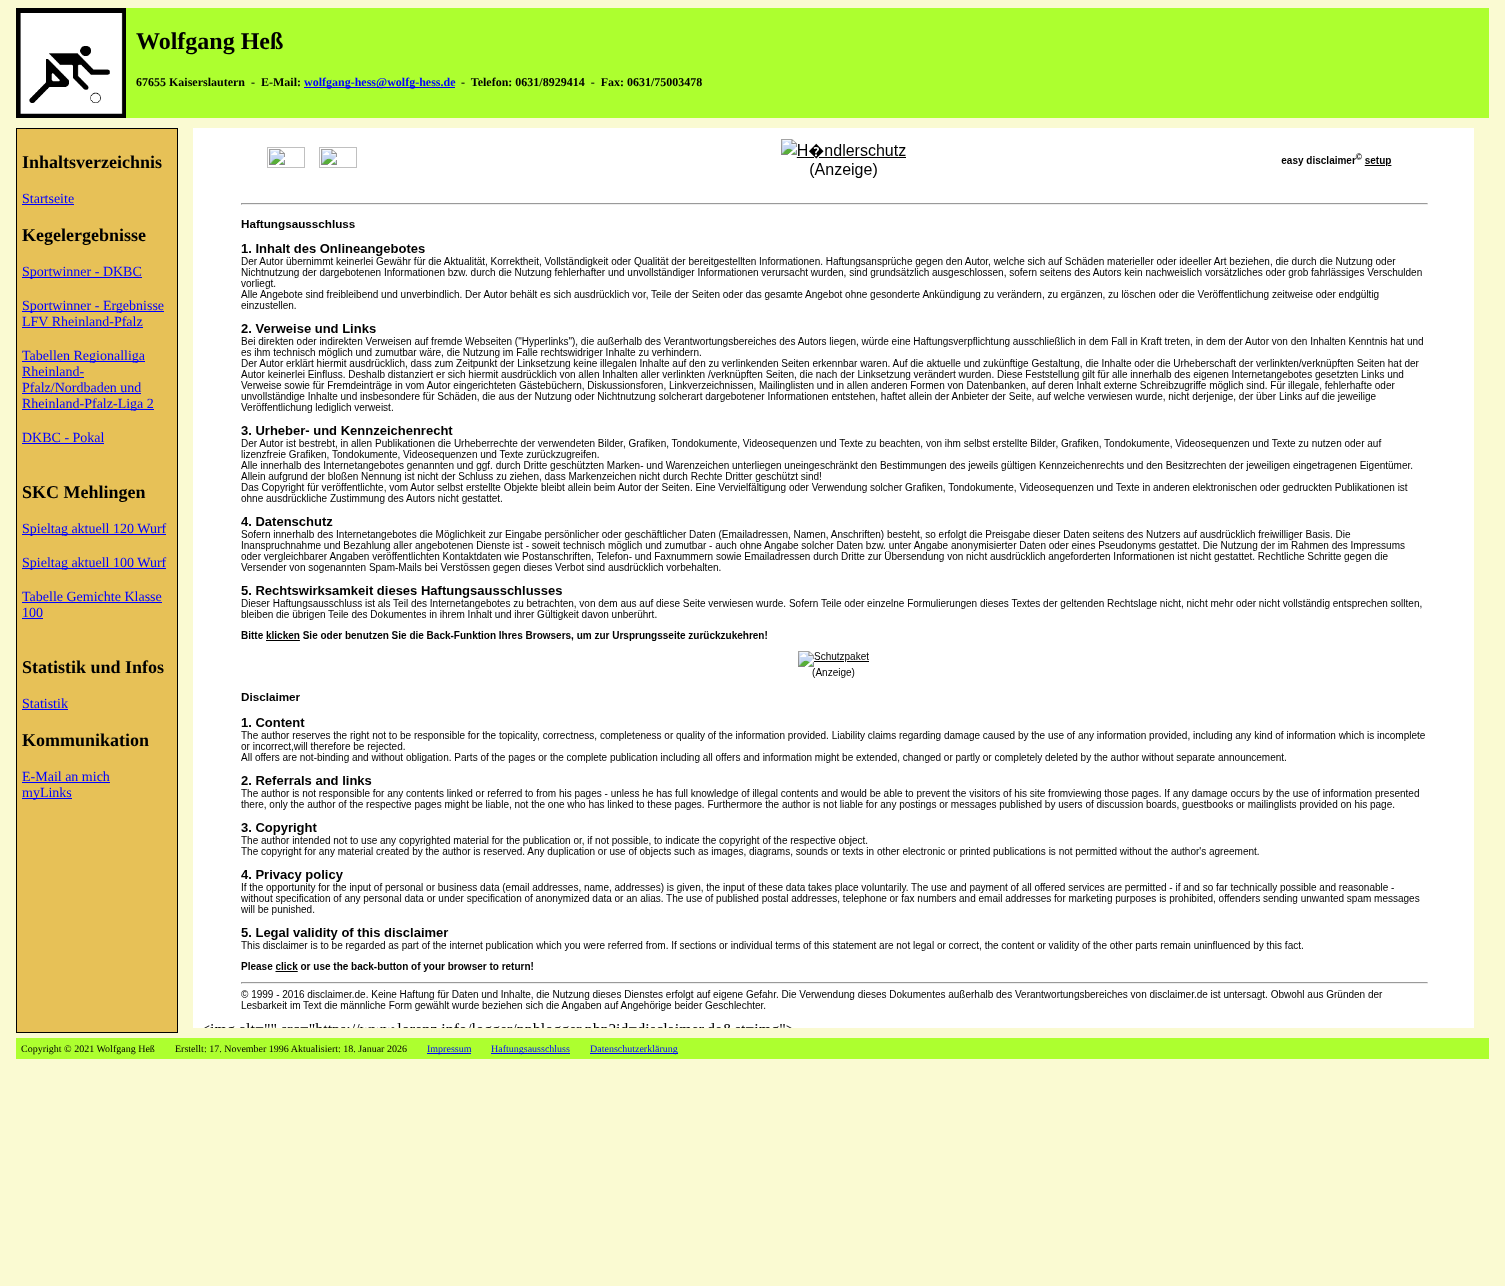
<svg xmlns="http://www.w3.org/2000/svg" width="1505" height="1286" viewBox="0 0 1505 1286">
  <rect width="100%" height="100%" fill="#fafad2"/>
  <rect x="126" y="8" width="1363" height="110" fill="#adff2f"/>
  <image x="16" y="8" width="110" height="110" href="img1.png"/>
  <text x="136" y="49" font-family="Liberation Serif" font-size="24" font-weight="bold" fill="#000000">Wolfgang Heß</text>
  <text x="136" y="86" font-family="Liberation Serif" font-size="12" font-weight="bold" fill="#000000" xml:space="preserve">67655 Kaiserslautern  -  E-Mail:</text>
  <rect x="304" y="87" width="151" height="1" fill="#0000ff"/>
  <text x="304" y="86" font-family="Liberation Serif" font-size="12" font-weight="bold" fill="#0000ff">wolfgang-hess@wolfg-hess.de</text>
  <text x="461" y="86" font-family="Liberation Serif" font-size="12" font-weight="bold" fill="#000000" xml:space="preserve">-  Telefon: 0631/8929414  -  Fax: 0631/75003478</text>
  <rect x="16.5" y="128.5" width="161" height="904" fill="#e7c157" stroke="#000000"/>
  <text x="22" y="168" font-family="Liberation Serif" font-size="18" font-weight="bold" fill="#000000">Inhaltsverzeichnis</text>
  <text x="22" y="203" font-family="Liberation Serif" font-size="14" fill="#0000ff">Startseite</text>
  <rect x="22" y="204" width="52" height="1" fill="#0000ff"/>
  <text x="22" y="241" font-family="Liberation Serif" font-size="18" font-weight="bold" fill="#000000">Kegelergebnisse</text>
  <rect x="22" y="277" width="120" height="1" fill="#0000ff"/>
  <text x="22" y="276" font-family="Liberation Serif" font-size="14" fill="#0000ff">Sportwinner - DKBC</text>
  <rect x="22" y="311" width="142" height="1" fill="#0000ff"/>
  <text x="22" y="310" font-family="Liberation Serif" font-size="14" fill="#0000ff">Sportwinner - Ergebnisse</text>
  <text x="22" y="326" font-family="Liberation Serif" font-size="14" fill="#0000ff">LFV Rheinland-Pfalz</text>
  <rect x="22" y="327" width="121" height="1" fill="#0000ff"/>
  <rect x="22" y="361" width="123" height="1" fill="#0000ff"/>
  <text x="22" y="360" font-family="Liberation Serif" font-size="14" fill="#0000ff">Tabellen Regionalliga</text>
  <text x="22" y="376" font-family="Liberation Serif" font-size="14" fill="#0000ff">Rheinland-</text>
  <rect x="22" y="377" width="62" height="1" fill="#0000ff"/>
  <text x="22" y="392" font-family="Liberation Serif" font-size="14" fill="#0000ff">Pfalz/Nordbaden und</text>
  <rect x="22" y="393" width="119" height="1" fill="#0000ff"/>
  <rect x="22" y="409" width="132" height="1" fill="#0000ff"/>
  <text x="22" y="408" font-family="Liberation Serif" font-size="14" fill="#0000ff">Rheinland-Pfalz-Liga 2</text>
  <text x="22" y="442" font-family="Liberation Serif" font-size="14" fill="#0000ff">DKBC - Pokal</text>
  <rect x="22" y="443" width="82" height="1" fill="#0000ff"/>
  <text x="22" y="498" font-family="Liberation Serif" font-size="18" font-weight="bold" fill="#000000">SKC Mehlingen</text>
  <rect x="22" y="534" width="144" height="1" fill="#0000ff"/>
  <text x="22" y="533" font-family="Liberation Serif" font-size="14" fill="#0000ff">Spieltag aktuell 120 Wurf</text>
  <rect x="22" y="568" width="144" height="1" fill="#0000ff"/>
  <text x="22" y="567" font-family="Liberation Serif" font-size="14" fill="#0000ff">Spieltag aktuell 100 Wurf</text>
  <text x="22" y="601" font-family="Liberation Serif" font-size="14" fill="#0000ff">Tabelle Gemichte Klasse</text>
  <rect x="22" y="602" width="140" height="1" fill="#0000ff"/>
  <text x="22" y="617" font-family="Liberation Serif" font-size="14" fill="#0000ff">100</text>
  <rect x="22" y="618" width="21" height="1" fill="#0000ff"/>
  <text x="22" y="673" font-family="Liberation Serif" font-size="18" font-weight="bold" fill="#000000">Statistik und Infos</text>
  <text x="22" y="708" font-family="Liberation Serif" font-size="14" fill="#0000ff">Statistik</text>
  <rect x="22" y="709" width="46" height="1" fill="#0000ff"/>
  <text x="22" y="746" font-family="Liberation Serif" font-size="18" font-weight="bold" fill="#000000">Kommunikation</text>
  <text x="22" y="781" font-family="Liberation Serif" font-size="14" fill="#0000ff">E-Mail an mich</text>
  <rect x="22" y="782" width="88" height="1" fill="#0000ff"/>
  <rect x="22" y="798" width="50" height="1" fill="#0000ff"/>
  <text x="22" y="797" font-family="Liberation Serif" font-size="14" fill="#0000ff">myLinks</text>
  <image x="193" y="128" width="1281" height="900" href="img2.png"/>
  <rect x="16" y="1038" width="1473" height="21" fill="#adff2f"/>
  <text x="21" y="1052" font-family="Liberation Serif" font-size="10" fill="#000000">Copyright © 2021 Wolfgang Heß</text>
  <text x="175" y="1052" font-family="Liberation Serif" font-size="10" fill="#000000">Erstellt: 17. November 1996 Aktualisiert: 18. Januar 2026</text>
  <rect x="427" y="1053" width="44" height="1" fill="#0000ff"/>
  <text x="427" y="1052" font-family="Liberation Serif" font-size="10" fill="#0000ff">Impressum</text>
  <rect x="491" y="1053" width="79" height="1" fill="#0000ff"/>
  <text x="491" y="1052" font-family="Liberation Serif" font-size="10" fill="#0000ff">Haftungsausschluss</text>
  <rect x="590" y="1053" width="88" height="1" fill="#0000ff"/>
  <text x="590" y="1052" font-family="Liberation Serif" font-size="10" fill="#0000ff">Datenschutzerklärung</text>
</svg>
